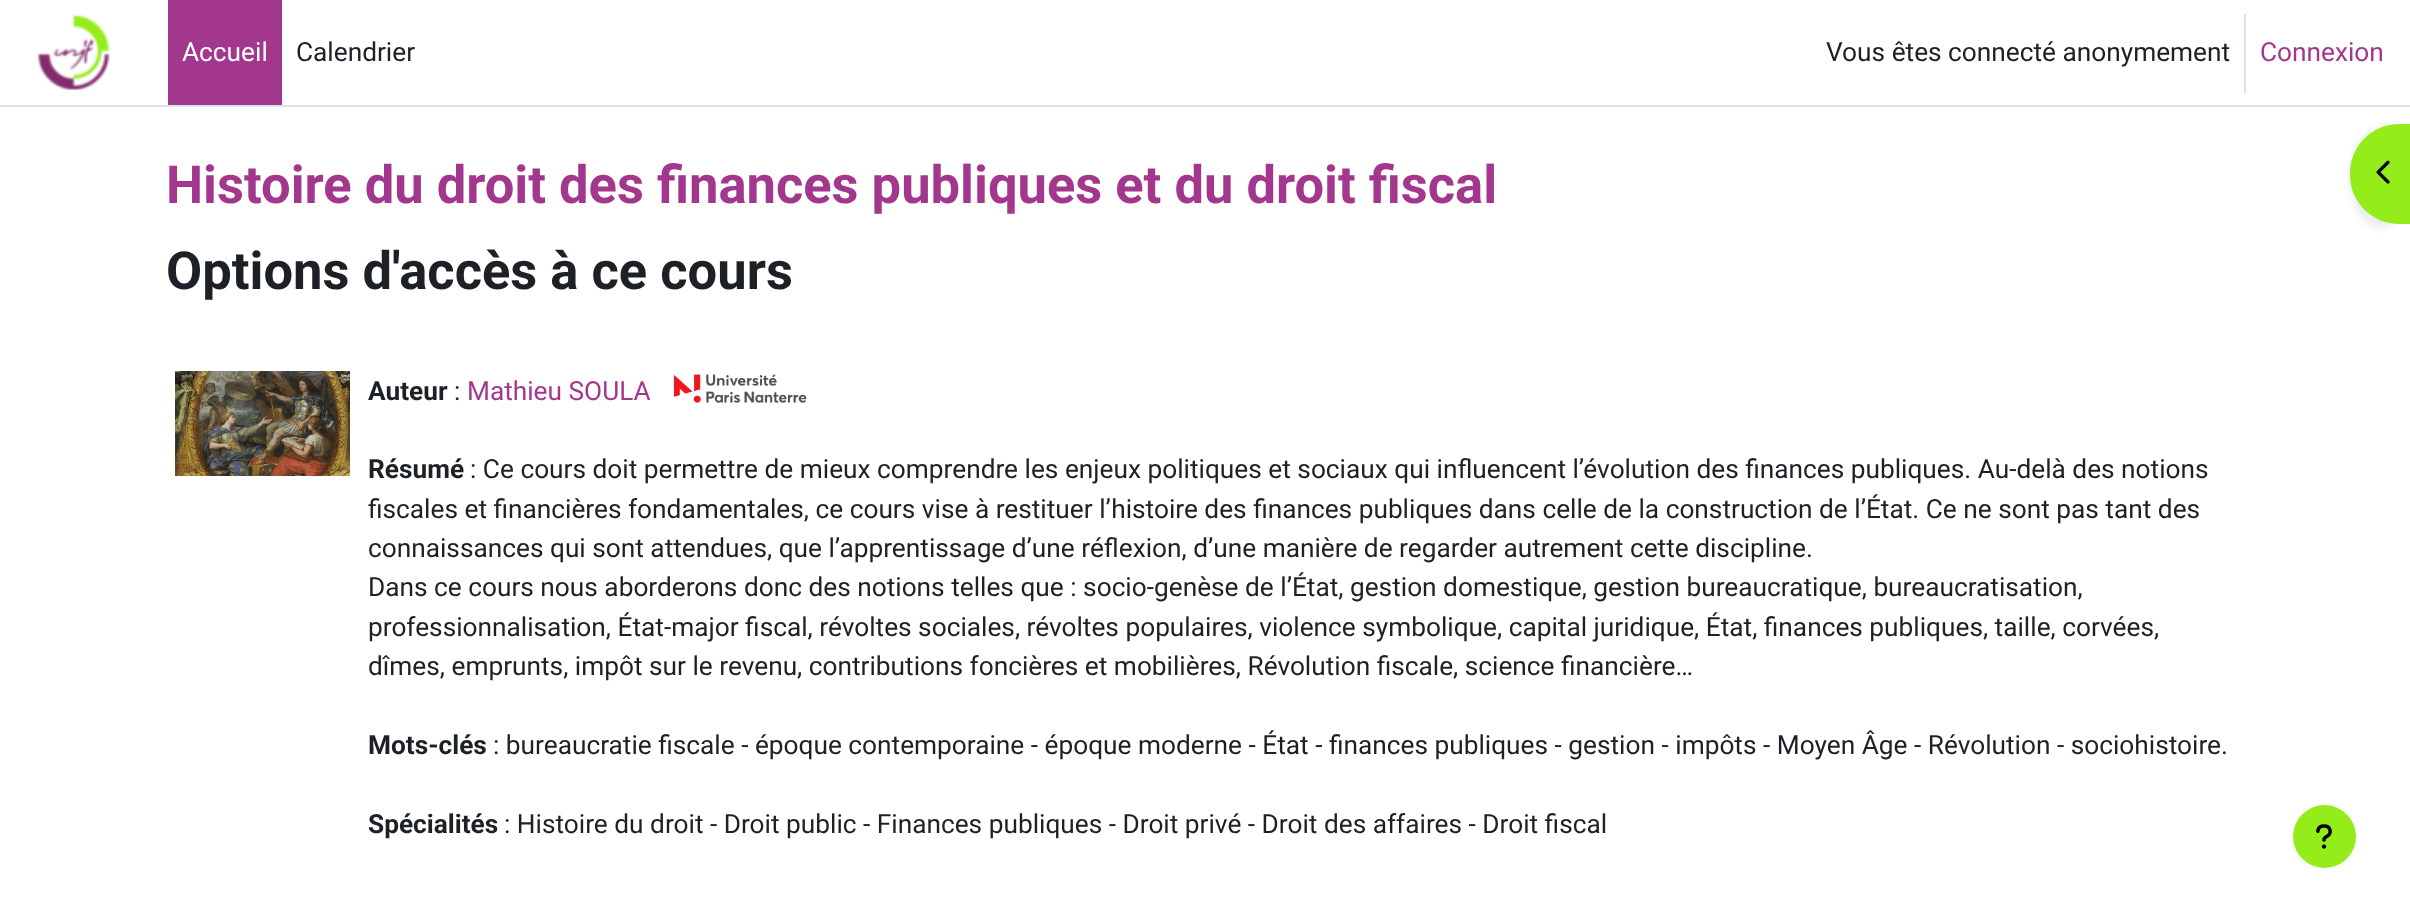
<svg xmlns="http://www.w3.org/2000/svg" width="2410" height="923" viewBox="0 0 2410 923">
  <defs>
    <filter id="blur1" x="-50%" y="-200%" width="200%" height="500%"><feGaussianBlur stdDeviation="3.5"/></filter>
  </defs>
  <rect width="100%" height="100%" fill="#ffffff"/>
  <rect x="0" y="105" width="2410" height="2" fill="#dee2e6"/>
  <image x="37" y="14" width="73" height="76" href="img1.png"/>
  <rect x="168" y="0" width="114" height="105" fill="#a3378d"/>
  <text x="182" y="61" font-family="Roboto" font-size="26.25" fill="#ffffff">Accueil</text>
  <text x="296" y="61" font-family="Roboto" font-size="26.25" fill="#1d2125">Calendrier</text>
  <text x="1826" y="61" font-family="Roboto" font-size="26.25" fill="#1d2125">Vous êtes connecté anonymement</text>
  <rect x="2244" y="14" width="2" height="79" fill="#dee2e6"/>
  <text x="2260" y="61" font-family="Roboto" font-size="26.25" fill="#a3378d">Connexion</text>
  <text x="166" y="203" font-family="Roboto" font-size="52.5" font-weight="bold" fill="#a3378d">Histoire du droit des finances publiques et du droit fiscal</text>
  <rect x="2350" y="128" width="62" height="100" rx="49" fill="#000000" fill-opacity="0.07" filter="url(#blur1)"/>
  <path d="M2399 124H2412V224H2399C2372 224 2350 202 2350 175V173C2350 146 2372 124 2399 124Z" fill="#94ed1b"/>
  <image x="2376" y="160" width="14" height="24" href="img2.png"/>
  <text x="166" y="289" font-family="Roboto" font-size="52.5" font-weight="bold" fill="#1d2125">Options d'accès à ce cours</text>
  <image x="175" y="371" width="175" height="105" href="img3.png"/>
  <text x="368" y="400" font-family="Roboto" font-size="26.25" font-weight="bold" fill="#1d2125">Auteur</text>
  <text x="454" y="400" font-family="Roboto" font-size="26.25" fill="#1d2125">:</text>
  <text x="467" y="400" font-family="Roboto" font-size="26.25" fill="#a3378d">Mathieu SOULA</text>
  <image x="673" y="374" width="134" height="29" href="img4.png"/>
  <text x="368" y="478" font-family="Roboto" font-size="26.25" font-weight="bold" fill="#1d2125">Résumé</text>
  <text x="470" y="478" font-family="Roboto" font-size="26.25" fill="#1d2125">: Ce cours doit permettre de mieux comprendre les enjeux politiques et sociaux qui influencent l’évolution des finances publiques. Au-delà des notions</text>
  <text x="368" y="518" font-family="Roboto" font-size="26.25" fill="#1d2125">fiscales et financières fondamentales, ce cours vise à restituer l’histoire des finances publiques dans celle de la construction de l’État. Ce ne sont pas tant des</text>
  <text x="368" y="557" font-family="Roboto" font-size="26.25" fill="#1d2125">connaissances qui sont attendues, que l’apprentissage d’une réflexion, d’une manière de regarder autrement cette discipline.</text>
  <text x="368" y="596" font-family="Roboto" font-size="26.25" fill="#1d2125">Dans ce cours nous aborderons donc des notions telles que : socio-genèse de l’État, gestion domestique, gestion bureaucratique, bureaucratisation,</text>
  <text x="368" y="636" font-family="Roboto" font-size="26.25" fill="#1d2125">professionnalisation, État-major fiscal, révoltes sociales, révoltes populaires, violence symbolique, capital juridique, État, finances publiques, taille, corvées,</text>
  <text x="368" y="675" font-family="Roboto" font-size="26.25" fill="#1d2125">dîmes, emprunts, impôt sur le revenu, contributions foncières et mobilières, Révolution fiscale, science financière…</text>
  <text x="368" y="754" font-family="Roboto" font-size="26.25" font-weight="bold" fill="#1d2125">Mots-clés</text>
  <text x="493" y="754" font-family="Roboto" font-size="26.25" fill="#1d2125">: bureaucratie fiscale - époque contemporaine - époque moderne - État - finances publiques - gestion - impôts - Moyen Âge - Révolution - sociohistoire.</text>
  <text x="368" y="833" font-family="Roboto" font-size="26.25" font-weight="bold" fill="#1d2125">Spécialités</text>
  <text x="504" y="833" font-family="Roboto" font-size="26.25" fill="#1d2125">: Histoire du droit - Droit public - Finances publiques - Droit privé - Droit des affaires - Droit fiscal</text>
  <circle cx="2324.5" cy="836.5" r="31.5" fill="#94ed1b"/>
  <image x="2316" y="824" width="16" height="25" href="img5.png"/>
</svg>
